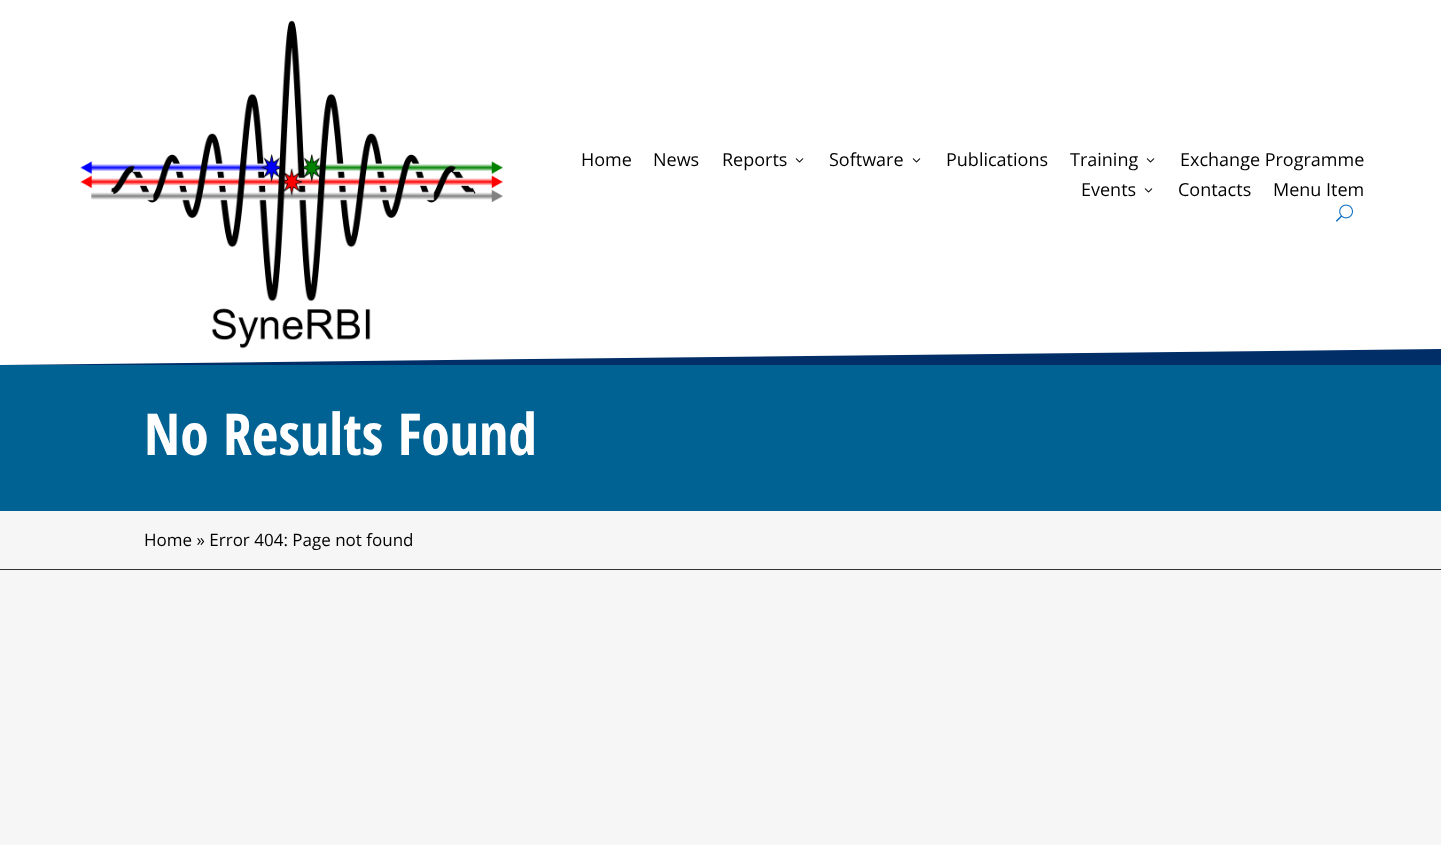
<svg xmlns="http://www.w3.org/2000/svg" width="1441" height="845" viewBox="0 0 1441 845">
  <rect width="100%" height="100%" fill="#ffffff"/>
  <image x="80" y="20" width="423" height="329" href="img1.png"/>
  <text x="581" y="166" font-family="Open Sans" font-size="18" fill="#000000">Home</text>
  <text x="653" y="166" font-family="Open Sans" font-size="18" fill="#000000">News</text>
  <text x="722" y="166" font-family="Open Sans" font-size="18" fill="#000000">Reports</text>
  <image x="795" y="158" width="9" height="5" href="img2.png"/>
  <text x="829" y="166" font-family="Open Sans" font-size="18" fill="#000000">Software</text>
  <image x="912" y="158" width="9" height="5" href="img2.png"/>
  <text x="946" y="166" font-family="Open Sans" font-size="18" fill="#000000">Publications</text>
  <text x="1070" y="166" font-family="Open Sans" font-size="18" fill="#000000">Training</text>
  <image x="1146" y="158" width="9" height="5" href="img2.png"/>
  <text x="1180" y="166" font-family="Open Sans" font-size="18" fill="#000000">Exchange Programme</text>
  <text x="1081" y="196" font-family="Open Sans" font-size="18" fill="#000000">Events</text>
  <image x="1144" y="188" width="9" height="5" href="img2.png"/>
  <text x="1178" y="196" font-family="Open Sans" font-size="18" fill="#000000">Contacts</text>
  <text x="1273" y="196" font-family="Open Sans" font-size="18" fill="#000000">Menu Item</text>
  <image x="1336" y="204" width="17" height="18" href="img3.png"/>
  <path d="M1441 349V365H0Z" fill="#022e67"/>
  <rect x="0" y="365" width="1441" height="146" fill="#006293"/>
  <text x="144" y="455" font-family="Open Sans Condensed" font-size="57.75" font-weight="bold" fill="#ffffff">No Results Found</text>
  <rect x="0" y="511" width="1441" height="58" fill="#f6f6f6"/>
  <text x="144" y="546" font-family="Open Sans" font-size="17" fill="#000000">Home » Error 404: Page not found</text>
  <rect x="0" y="570" width="1441" height="275" fill="#f6f6f6"/>
  <rect x="0" y="569" width="1441" height="1" fill="#333333"/>
</svg>
